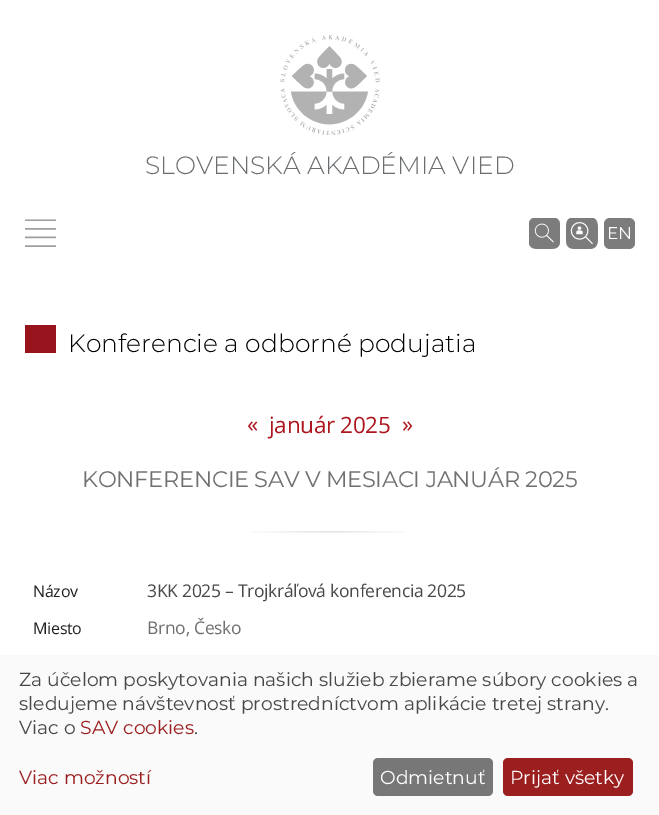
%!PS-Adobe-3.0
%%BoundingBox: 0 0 659 815
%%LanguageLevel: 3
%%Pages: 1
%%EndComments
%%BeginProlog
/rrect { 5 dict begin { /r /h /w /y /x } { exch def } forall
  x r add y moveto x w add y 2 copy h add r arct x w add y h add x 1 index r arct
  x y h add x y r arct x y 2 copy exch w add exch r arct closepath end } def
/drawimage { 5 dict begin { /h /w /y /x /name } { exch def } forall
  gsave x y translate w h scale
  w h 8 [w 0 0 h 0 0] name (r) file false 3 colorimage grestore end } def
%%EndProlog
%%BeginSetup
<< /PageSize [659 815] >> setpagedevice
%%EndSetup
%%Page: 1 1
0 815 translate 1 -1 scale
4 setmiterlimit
1 setgray
0 0 659 815 rectfill
(images/1.raw) 280 35 100 100 drawimage
(images/2.raw) 25 219 31 28 drawimage
(images/3.raw) 529 218 31 31 drawimage
0.502 setgray
566 218 32 31 9 rrect fill
(images/4.raw) 566 218 32 31 drawimage
0.486 setgray
604 218 31 31 6 rrect fill
0.592 0.078 0.11 setrgbcolor
25 325 31 28 rectfill
(images/5.raw) 251 531 155 2 drawimage
0.98 setgray
0 655 659 160 rectfill
0.467 setgray
373 758 120 38 5 rrect fill
0.612 0.122 0.125 setrgbcolor
503 758 130 38 5 rrect fill
/Montserrat-Light [25 0 0 -25 0 0] selectfont
0.416 0.427 0.435 setrgbcolor
145 174 moveto (SLOVENSKÁ AKADÉMIA VIED) show
/Montserrat-Regular [17 0 0 -17 0 0] selectfont
1 setgray
607 239 moveto (EN) show
/Montserrat-Light [25 0 0 -25 0 0] selectfont
0 setgray
68 352 moveto (Konferencie a odborné podujatia) show
/OpenSans-Regular [22.5 0 0 -22.5 0 0] selectfont
0.678 0.086 0.118 setrgbcolor
247 432 moveto -0.3 0 («) ashow
269 433 moveto -0.3 0 (január 2025) ashow
402 432 moveto -0.3 0 (») ashow
/Montserrat-Regular [22.5 0 0 -22.5 0 0] selectfont
0.443 0.439 0.443 setrgbcolor
82 487 moveto -0.3 0 (KONFERENCIE SAV V MESIACI JANUÁR 2025) ashow
/OpenSans-Regular [16 0 0 -16 0 0] selectfont
0.129 0.125 0.129 setrgbcolor
33 597 moveto -0.3 0 (Názov) ashow
/OpenSans-Regular [17.5 0 0 -17.5 0 0] selectfont
0.286 0.278 0.282 setrgbcolor
147 597 moveto -0.3 0 (3KK 2025 – Trojkráľová konferencia 2025) ashow
/OpenSans-Regular [16 0 0 -16 0 0] selectfont
0.129 0.125 0.129 setrgbcolor
33 634 moveto -0.3 0 (Miesto) ashow
/OpenSans-Regular [17.5 0 0 -17.5 0 0] selectfont
0.443 0.439 0.443 setrgbcolor
147 634 moveto -0.3 0 (Brno, Česko) ashow
/Montserrat-Regular [18.75 0 0 -18.75 0 0] selectfont
0.286 0.278 0.282 setrgbcolor
19 686 moveto (Za účelom poskytovania našich služieb zbierame súbory cookies a) show
19 710 moveto (sledujeme návštevnosť prostredníctvom aplikácie tretej strany.) show
19 734 moveto (Viac o) show
0.612 0.122 0.125 setrgbcolor
80 734 moveto (SAV cookies) show
0.286 0.278 0.282 setrgbcolor
194 734 moveto (.) show
0.612 0.122 0.125 setrgbcolor
19 784 moveto (Viac možností) show
1 setgray
380 784 moveto (Odmietnuť) show
510 784 moveto (Prijať všetky) show
showpage
%%EOF
